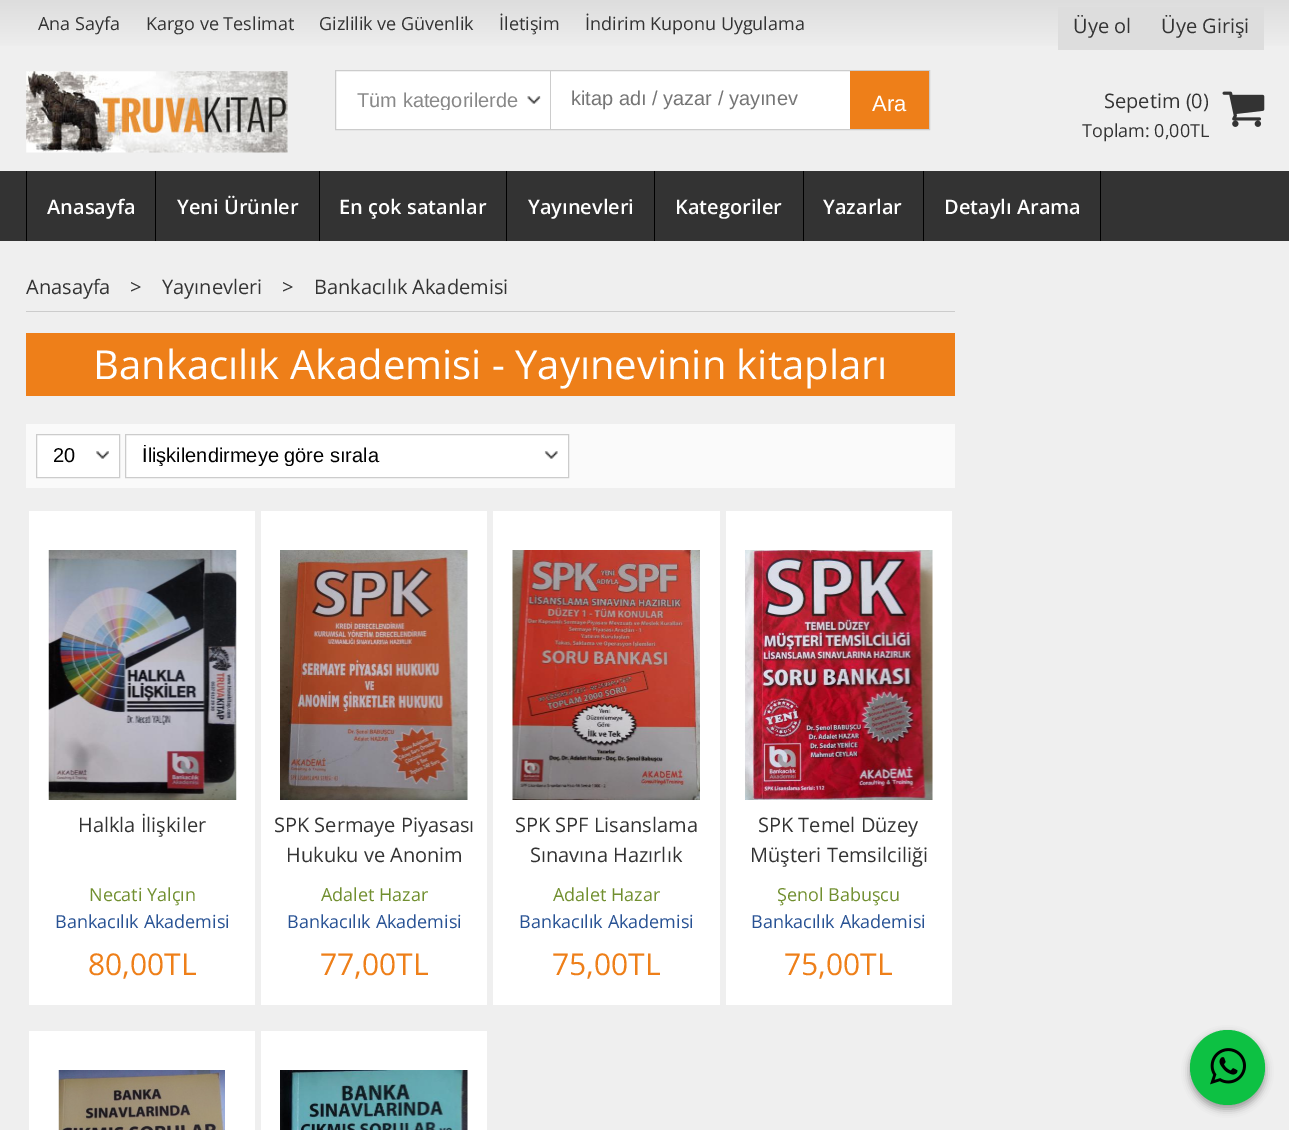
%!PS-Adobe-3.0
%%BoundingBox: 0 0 1289 1130
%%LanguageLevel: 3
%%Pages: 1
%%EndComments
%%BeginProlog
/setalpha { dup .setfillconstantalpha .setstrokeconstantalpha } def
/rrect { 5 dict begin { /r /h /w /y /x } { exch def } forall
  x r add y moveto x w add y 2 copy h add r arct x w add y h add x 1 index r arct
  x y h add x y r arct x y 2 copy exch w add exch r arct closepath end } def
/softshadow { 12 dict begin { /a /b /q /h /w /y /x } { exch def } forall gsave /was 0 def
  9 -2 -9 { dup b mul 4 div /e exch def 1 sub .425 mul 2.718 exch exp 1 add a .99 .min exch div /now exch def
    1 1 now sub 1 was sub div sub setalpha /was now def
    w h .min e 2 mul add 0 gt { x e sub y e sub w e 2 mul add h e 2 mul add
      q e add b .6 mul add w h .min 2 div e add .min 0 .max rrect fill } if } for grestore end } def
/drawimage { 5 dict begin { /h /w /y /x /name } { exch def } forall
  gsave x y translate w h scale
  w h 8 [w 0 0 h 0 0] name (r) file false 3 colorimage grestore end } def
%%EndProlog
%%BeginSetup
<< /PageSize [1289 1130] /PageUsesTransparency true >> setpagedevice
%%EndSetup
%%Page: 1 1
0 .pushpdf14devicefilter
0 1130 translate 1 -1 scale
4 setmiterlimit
0.937 setgray
0 0 1289 1130 rectfill
gsave newpath 0 0 moveto 1289 0 lineto 1289 46 lineto 0 46 lineto closepath clip newpath
<< /ShadingType 2 /ColorSpace /DeviceRGB /Coords [645 0 645 50] /Extend [true true] /Function << /FunctionType 2 /Domain [0 1] /C0 [0.867 0.867 0.867] /C1 [0.933 0.933 0.933] /N 1 >> >> shfill grestore
0.867 setgray
1058 7 206 43 rectfill
(images/1.raw) 26 71 262 82 drawimage
1 setgray
336 71 514 58 rectfill
0.8 setgray
335.5 70.5 594 59 rectstroke
(images/2.raw) 527 96 14 8 drawimage
550 71 1 58 rectfill
0.933 0.498 0.098 setrgbcolor
850 71 79 58 rectfill
(images/3.raw) 1222 91 43 36 drawimage
0.2 setgray
0 171 1289 70 rectfill
0 setgray
26 171 1 70 rectfill
155 171 1 70 rectfill
319 171 1 70 rectfill
506 171 1 70 rectfill
654 171 1 70 rectfill
803 171 1 70 rectfill
1100 171 1 70 rectfill
923 171 1 70 rectfill
0.8 setgray
26 311 929 1 rectfill
0.933 0.498 0.098 setrgbcolor
26 333 929 63 rectfill
0.98 setgray
26 424 929 64 rectfill
1 setgray
37 435 82 42 rectfill
(images/4.raw) 96 451 13 8 drawimage
0.8 setgray
36.5 434.5 83 43 rectstroke
1 setgray
126 435 442 42 rectfill
(images/5.raw) 544 451 14 8 drawimage
0.8 setgray
125.5 434.5 443 43 rectstroke
1 setgray
29 511 226 494 rectfill
(images/6.raw) 48 550 189 250 drawimage
261 511 226 494 rectfill
(images/7.raw) 280 550 188 250 drawimage
493 511 227 494 rectfill
(images/8.raw) 512 550 188 250 drawimage
726 511 226 494 rectfill
(images/9.raw) 745 550 188 250 drawimage
29 1031 226 99 rectfill
(images/10.raw) 58 1070 167 60 drawimage
261 1031 226 99 rectfill
(images/11.raw) 280 1070 188 60 drawimage
0 setgray
1190 1034 75 75 37.5 4 0.23 softshadow
1190 1034 75 75 37.5 4 0.16 softshadow
0.051 0.757 0.263 setrgbcolor
newpath 1227.5 1067.5 37.5 0 360 arc closepath fill
(images/12.raw) 1210 1048 36 37 drawimage
/OpenSans-Regular [18 0 0 -18 0 0] selectfont
0.2 setgray
38 30 moveto (Ana Sayfa) show
146 30 moveto (Kargo ve Teslimat) show
319 30 moveto (Gizlilik ve Güvenlik) show
499 30 moveto (İletişim) show
585 30 moveto (İndirim Kuponu Uygulama) show
/OpenSans-Regular [20 0 0 -20 0 0] selectfont
1073 33 moveto (Üye ol) show
1161 33 moveto (Üye Girişi) show
gsave
356 89 162 21 rectclip
/LiberationSans-Regular [20 0 0 -20 0 0] selectfont
0.533 setgray
357 107 moveto (Tüm kategorilerde) show
grestore
/LiberationSans-Regular [20 0 0 -20 0 0] selectfont
0.459 setgray
571 105 moveto (kitap adı / yazar / yayınev) show
/LiberationSans-Regular [22 0 0 -22 0 0] selectfont
1 setgray
872 111 moveto (Ara) show
/OpenSans-Regular [20 0 0 -20 0 0] selectfont
0.2 setgray
1104 108 moveto (Sepetim \(0\)) show
/OpenSans-Regular [18 0 0 -18 0 0] selectfont
1082 137 moveto (Toplam: 0,00TL) show
/OpenSans-SemiBold [20 0 0 -20 0 0] selectfont
1 setgray
47 214 moveto (Anasayfa) show
177 214 moveto (Yeni Ürünler) show
339 214 moveto (En çok satanlar) show
528 214 moveto (Yayınevleri) show
675 214 moveto (Kategoriler) show
823 214 moveto (Yazarlar) show
944 214 moveto (Detaylı Arama) show
/OpenSans-Regular [20 0 0 -20 0 0] selectfont
0.2 setgray
26 294 moveto (Anasayfa) show
130 294 moveto (>) show
162 294 moveto (Yayınevleri) show
282 294 moveto (>) show
314 294 moveto (Bankacılık Akademisi) show
/OpenSans-Regular [40 0 0 -40 0 0] selectfont
1 setgray
93 379 moveto (Bankacılık Akademisi - Yayınevinin kitapları) show
/LiberationSans-Regular [20 0 0 -20 0 0] selectfont
0 setgray
53 462 moveto (20) show
gsave
143 445 392 21 rectclip
142 462 moveto (İlişkilendirmeye göre sırala) show
grestore
/OpenSans-Regular [20 0 0 -20 0 0] selectfont
0.2 setgray
78 832 moveto (Halkla İlişkiler) show
/OpenSans-Regular [18 0 0 -18 0 0] selectfont
0.443 0.561 0.184 setrgbcolor
89 901 moveto (Necati Yalçın) show
0.157 0.322 0.58 setrgbcolor
55 928 moveto (Bankacılık Akademisi) show
/OpenSans-Regular [30 0 0 -30 0 0] selectfont
0.933 0.498 0.098 setrgbcolor
88 975 moveto (80,00TL) show
/OpenSans-Regular [20 0 0 -20 0 0] selectfont
0.2 setgray
274 832 moveto (SPK Sermaye Piyasası) show
286 862 moveto (Hukuku ve Anonim) show
/OpenSans-Regular [18 0 0 -18 0 0] selectfont
0.443 0.561 0.184 setrgbcolor
321 901 moveto (Adalet Hazar) show
0.157 0.322 0.58 setrgbcolor
287 928 moveto (Bankacılık Akademisi) show
/OpenSans-Regular [30 0 0 -30 0 0] selectfont
0.933 0.498 0.098 setrgbcolor
320 975 moveto (77,00TL) show
/OpenSans-Regular [20 0 0 -20 0 0] selectfont
0.2 setgray
515 832 moveto (SPK SPF Lisanslama) show
530 862 moveto (Sınavına Hazırlık) show
/OpenSans-Regular [18 0 0 -18 0 0] selectfont
0.443 0.561 0.184 setrgbcolor
553 901 moveto (Adalet Hazar) show
0.157 0.322 0.58 setrgbcolor
519 928 moveto (Bankacılık Akademisi) show
/OpenSans-Regular [30 0 0 -30 0 0] selectfont
0.933 0.498 0.098 setrgbcolor
552 975 moveto (75,00TL) show
/OpenSans-Regular [20 0 0 -20 0 0] selectfont
0.2 setgray
758 832 moveto (SPK Temel Düzey) show
750 862 moveto (Müşteri Temsilciliği) show
/OpenSans-Regular [18 0 0 -18 0 0] selectfont
0.443 0.561 0.184 setrgbcolor
777 901 moveto (Şenol Babuşcu) show
0.157 0.322 0.58 setrgbcolor
751 928 moveto (Bankacılık Akademisi) show
/OpenSans-Regular [30 0 0 -30 0 0] selectfont
0.933 0.498 0.098 setrgbcolor
784 975 moveto (75,00TL) show
.poppdf14devicefilter showpage
%%EOF
